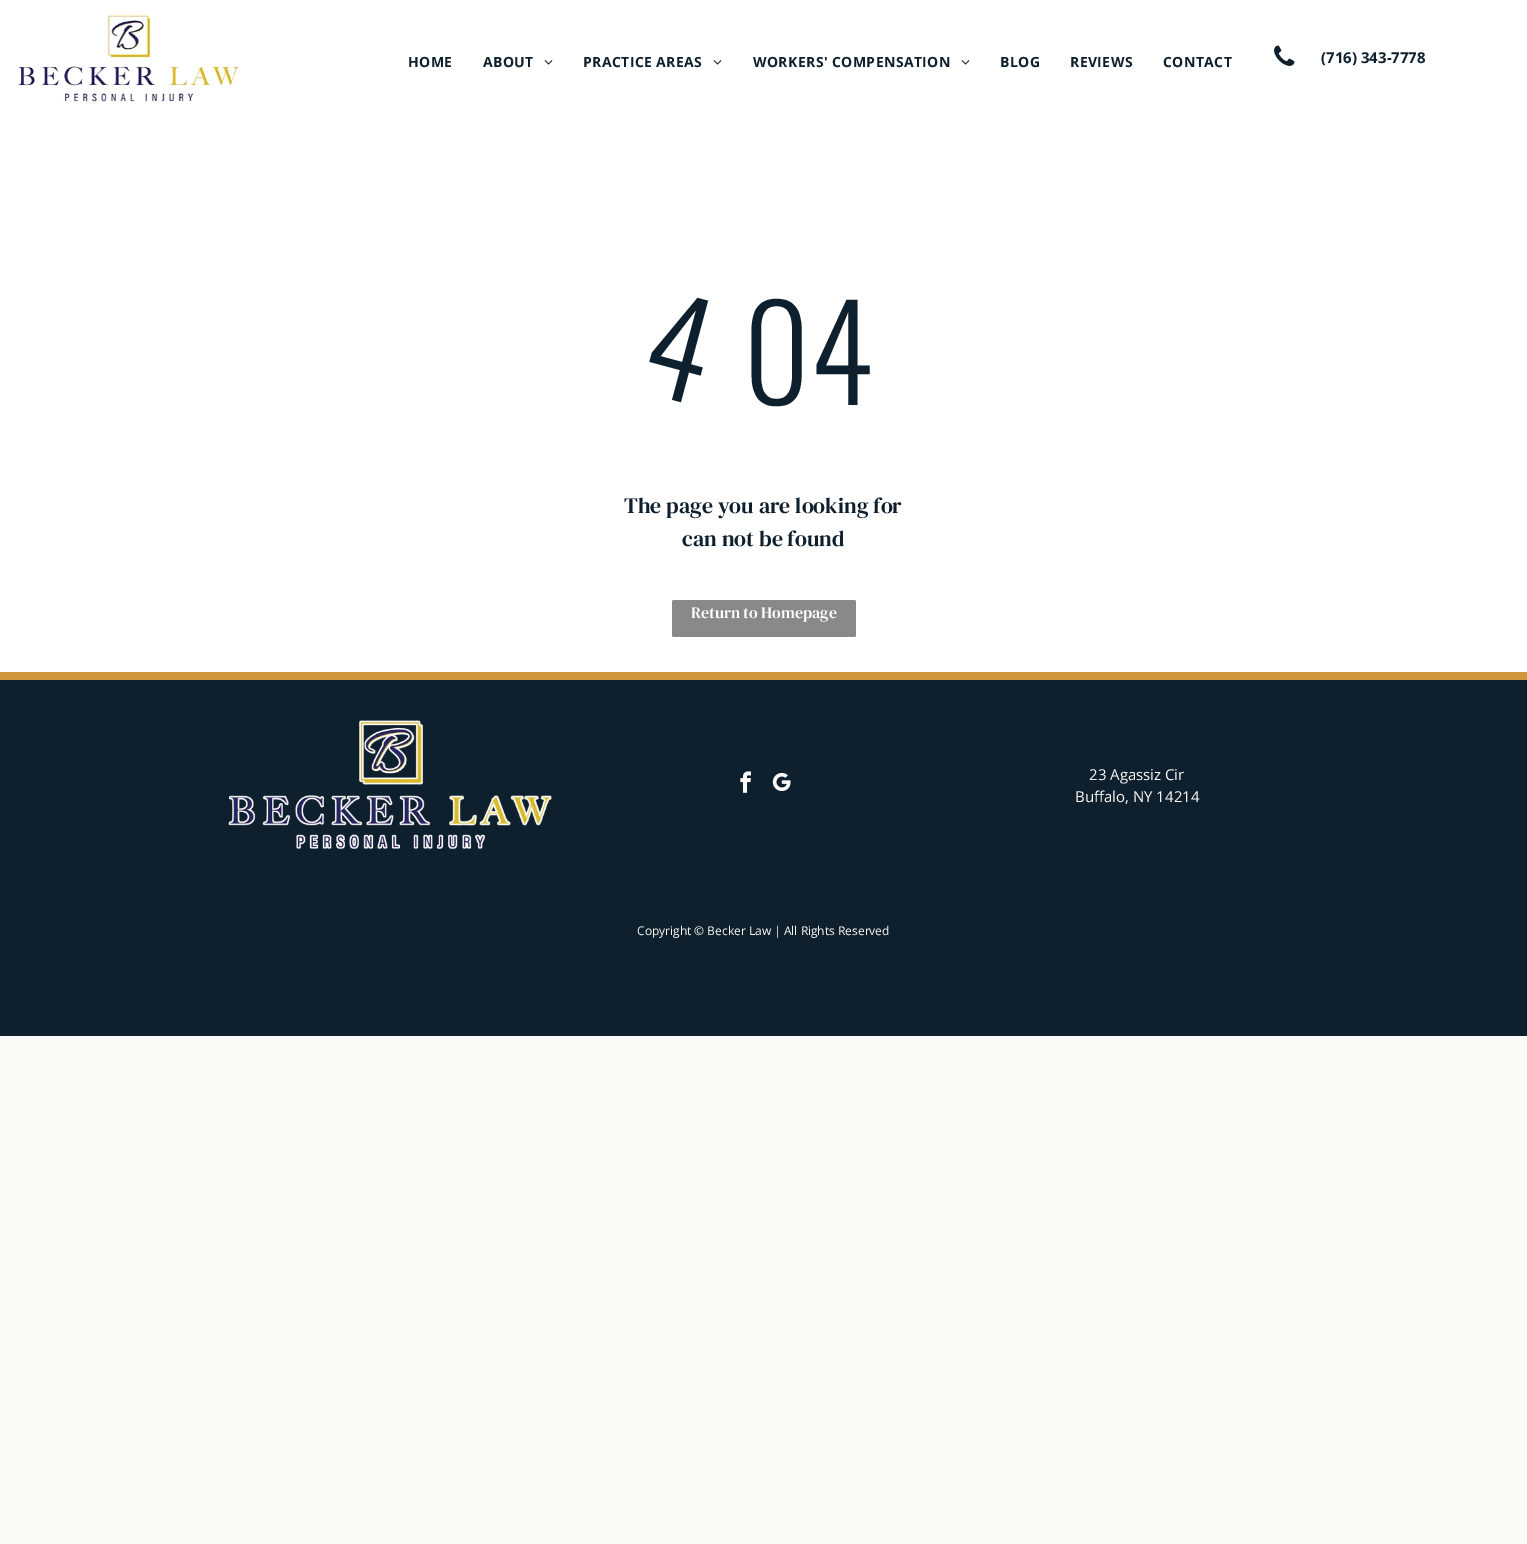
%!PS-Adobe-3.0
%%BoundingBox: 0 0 1527 1544
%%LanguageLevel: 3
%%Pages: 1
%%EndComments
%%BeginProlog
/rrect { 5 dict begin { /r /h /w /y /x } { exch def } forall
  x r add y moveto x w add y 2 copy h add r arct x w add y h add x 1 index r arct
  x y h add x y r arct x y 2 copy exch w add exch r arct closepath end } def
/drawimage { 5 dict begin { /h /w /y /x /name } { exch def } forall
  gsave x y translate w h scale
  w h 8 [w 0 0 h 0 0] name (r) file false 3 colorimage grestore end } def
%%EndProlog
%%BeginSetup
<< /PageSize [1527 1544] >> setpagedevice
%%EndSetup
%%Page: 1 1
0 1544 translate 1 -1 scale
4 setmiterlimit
0.988 0.98 0.969 setrgbcolor
0 0 1527 1544 rectfill
1 setgray
0 0 1527 672 rectfill
(images/1.raw) 18 15 221 87 drawimage
(images/2.raw) 544 60 9 5 drawimage
(images/2.raw) 713 60 9 5 drawimage
(images/2.raw) 961 60 9 5 drawimage
(images/3.raw) 1274 45 21 21 drawimage
0.537 setgray
672 600 184 37 2 rrect fill
0.055 0.125 0.18 setrgbcolor
0 680 1527 356 rectfill
0.82 0.588 0.227 setrgbcolor
0 672 1527 8 rectfill
(images/4.raw) 228 720 324 130 drawimage
(images/5.raw) 740 771 11 22 drawimage
(images/6.raw) 772 772 19 20 drawimage
/OpenSans-Bold [14 0 0 -14 0 0] selectfont
0.055 0.125 0.18 setrgbcolor
408 67 moveto 0.4 0 (HOME) ashow
483 67 moveto 0.4 0 (ABOUT) ashow
583 67 moveto 0.4 0 (PRACTICE AREAS) ashow
753 67 moveto 0.4 0 (WORKERS' COMPENSATION) ashow
1000 67 moveto 0.4 0 (BLOG) ashow
1070 67 moveto 0.4 0 (REVIEWS) ashow
1163 67 moveto 0.4 0 (CONTACT) ashow
/OpenSans-Bold [15 0 0 -15 0 0] selectfont
1321 63 moveto (\(716\) 343-7778) show
/Oswald-Light [130 0 0 -130 0 0] selectfont
gsave 635 390 translate 15 rotate 0 0 moveto (4) show grestore
743 405 moveto (04) show
/DMSerifText-Regular [22 0 0 -22 0 0] selectfont
624 513 moveto (The page you are looking for) show
682 546 moveto (can not be found) show
/DMSerifText-Regular [16 0 0 -16 0 0] selectfont
1 setgray
691 618 moveto (Return to Homepage) show
/OpenSans-Regular [15 0 0 -15 0 0] selectfont
0.988 0.98 0.969 setrgbcolor
1089 780 moveto (23 Agassiz Cir) show
1075 802 moveto (Buffalo, NY 14214) show
/OpenSans-Regular [12 0 0 -12 0 0] selectfont
637 935 moveto (Copyright © Becker Law | All Rights Reserved) show
showpage
%%EOF
